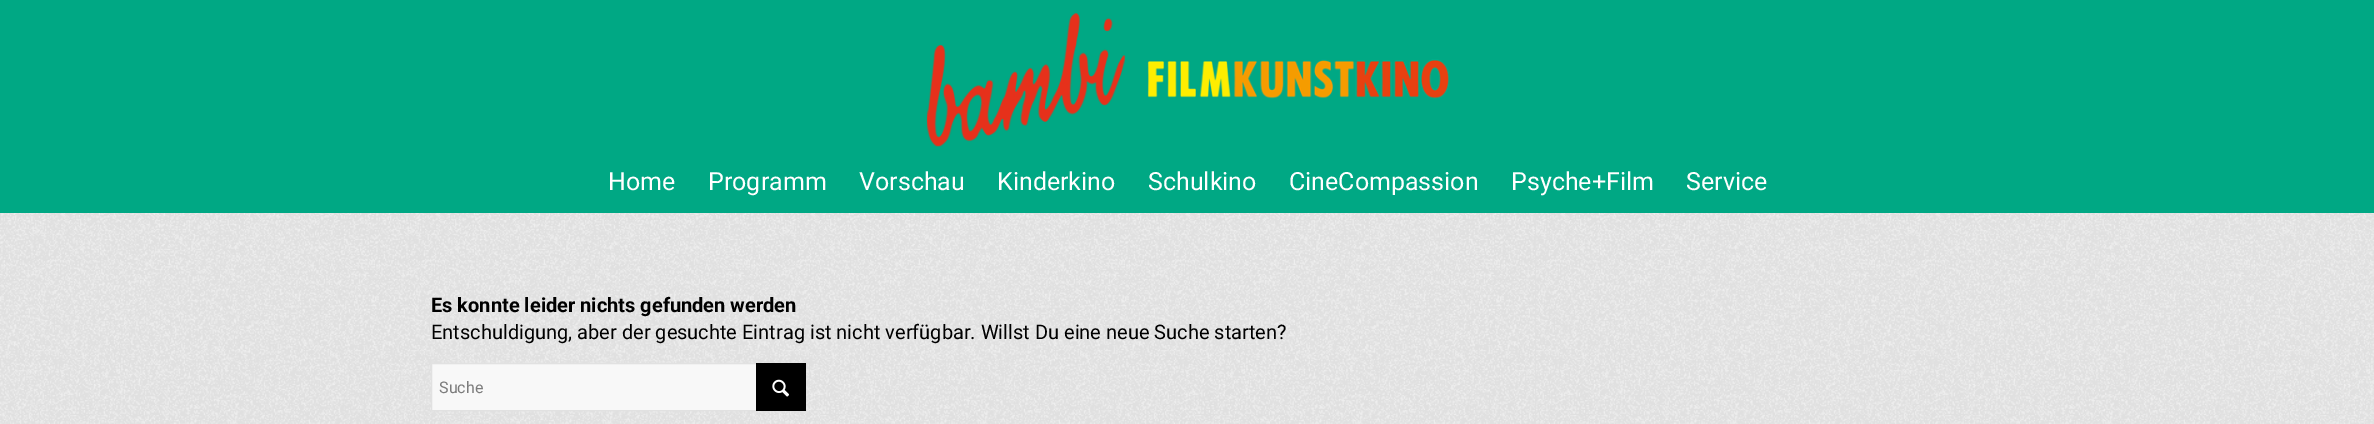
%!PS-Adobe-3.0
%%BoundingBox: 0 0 2374 424
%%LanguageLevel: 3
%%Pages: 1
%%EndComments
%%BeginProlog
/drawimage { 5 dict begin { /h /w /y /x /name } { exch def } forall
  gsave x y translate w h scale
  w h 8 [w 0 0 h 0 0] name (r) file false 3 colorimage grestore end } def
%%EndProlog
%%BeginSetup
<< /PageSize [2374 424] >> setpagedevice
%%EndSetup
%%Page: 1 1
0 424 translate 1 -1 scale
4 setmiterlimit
1 setgray
0 0 2374 424 rectfill
0 0.659 0.518 setrgbcolor
0 0 2374 213 rectfill
(images/1.raw) 926 13 523 134 drawimage
(images/2.raw) 0 213 2374 211 drawimage
0.882 setgray
1535 213 1 211 rectfill
0.973 setgray
432 364 324 46 rectfill
0.882 setgray
431.5 363.5 374 47 rectstroke
0 setgray
756 363 50 48 rectfill
(images/3.raw) 772 379 17 18 drawimage
/Roboto-Regular [25 0 0 -25 0 0] selectfont
1 setgray
608 190 moveto (Home) show
708 190 moveto (Programm) show
859 190 moveto (Vorschau) show
997 190 moveto (Kinderkino) show
1148 190 moveto (Schulkino) show
1289 190 moveto (CineCompassion) show
1511 190 moveto (Psyche+Film) show
1686 190 moveto (Service) show
/Roboto-Bold [20 0 0 -20 0 0] selectfont
0 setgray
431 312 moveto (Es konnte leider nichts gefunden werden) show
/Roboto-Regular [20 0 0 -20 0 0] selectfont
431 339 moveto (Entschuldigung, aber der gesuchte Eintrag ist nicht verfügbar. Willst Du eine neue Suche starten?) show
/Roboto-Regular [16 0 0 -16 0 0] selectfont
0.486 setgray
439 393 moveto (Suche) show
showpage
%%EOF
